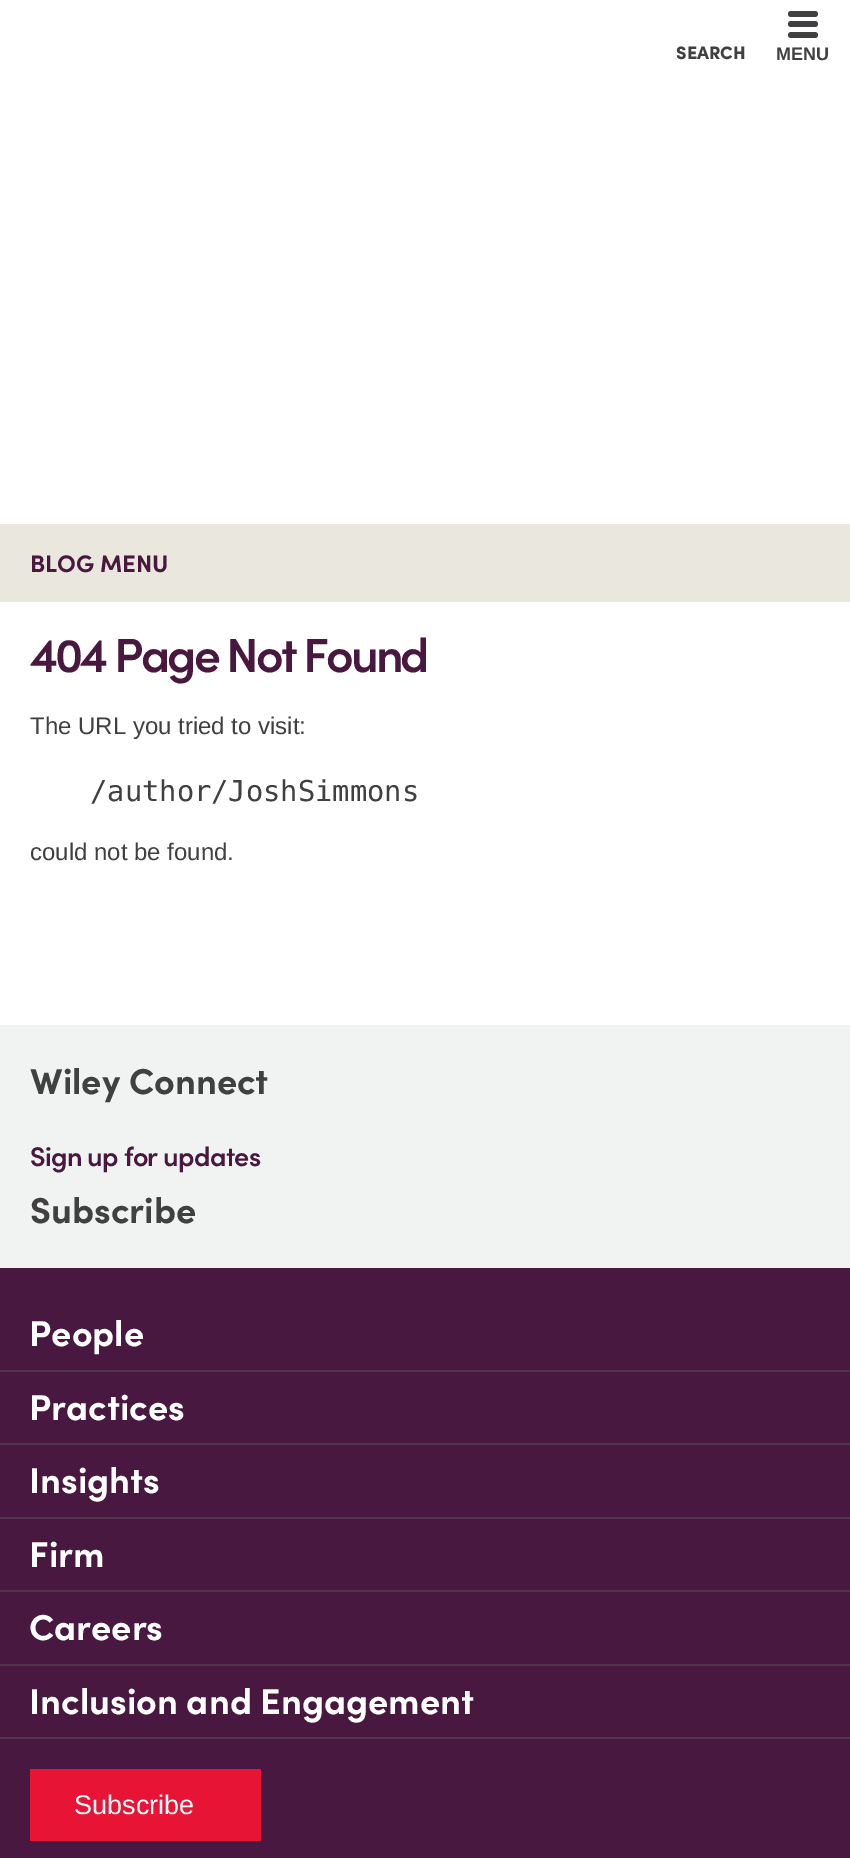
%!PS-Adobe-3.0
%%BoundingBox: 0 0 850 1858
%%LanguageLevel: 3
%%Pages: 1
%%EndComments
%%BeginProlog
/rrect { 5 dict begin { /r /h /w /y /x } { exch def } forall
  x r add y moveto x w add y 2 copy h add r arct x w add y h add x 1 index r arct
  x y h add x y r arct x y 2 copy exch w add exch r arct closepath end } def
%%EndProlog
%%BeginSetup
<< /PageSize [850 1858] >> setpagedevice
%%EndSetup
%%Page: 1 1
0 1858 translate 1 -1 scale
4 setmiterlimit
1 setgray
0 0 850 1858 rectfill
0.255 0.251 0.259 setrgbcolor
788 11 30 6 3 rrect fill
788 21 30 6 3 rrect fill
788 32 30 6 3 rrect fill
0.918 0.906 0.875 setrgbcolor
0 524 850 78 rectfill
0.941 0.953 0.949 setrgbcolor
0 1025 850 243 rectfill
0.286 0.094 0.251 setrgbcolor
0 1268 850 590 rectfill
0.314 0.204 0.298 setrgbcolor
0 1370 850 2 rectfill
0 1443 850 2 rectfill
0 1517 850 2 rectfill
0 1590 850 2 rectfill
0 1664 850 2 rectfill
0 1737 850 2 rectfill
0.906 0.078 0.208 setrgbcolor
30 1769 231 72 rectfill
/Sofia-Black [18 0 0 -18 0 0] selectfont
0.251 setgray
676 59 moveto (SEARCH) show
/LiberationSans-Bold [18 0 0 -18 0 0] selectfont
776 60 moveto (MENU) show
/Sofia-Bold [24 0 0 -24 0 0] selectfont
0.282 0.094 0.247 setrgbcolor
30 572 moveto (BLOG MENU) show
/Sofia-SemiBold [48 0 0 -48 0 0] selectfont
30 672 moveto -3 0 (404 Page Not Found) ashow
/LiberationSans-Regular [24 0 0 -24 0 0] selectfont
0.251 setgray
30 734 moveto (The URL you tried to visit:) show
/DejaVuSansMono-Regular [28.75 0 0 -28.75 0 0] selectfont
90 801 moveto (/author/JoshSimmons) show
/LiberationSans-Regular [24 0 0 -24 0 0] selectfont
30 860 moveto (could not be found.) show
/Sofia-Bold [36 0 0 -36 0 0] selectfont
30 1094 moveto (Wiley Connect) show
/Sofia-SemiBold [27 0 0 -27 0 0] selectfont
0.282 0.094 0.247 setrgbcolor
30 1166 moveto -0.75 0 (Sign up for updates) ashow
/Sofia-Bold [36 0 0 -36 0 0] selectfont
0.251 setgray
30 1223 moveto (Subscribe) show
1 setgray
29 1346 moveto (People) show
29 1420 moveto (Practices) show
29 1493 moveto (Insights) show
29 1567 moveto (Firm) show
29 1640 moveto (Careers) show
29 1714 moveto (Inclusion and Engagement) show
/LiberationSans-Regular [27 0 0 -27 0 0] selectfont
74 1814 moveto (Subscribe) show
showpage
%%EOF
